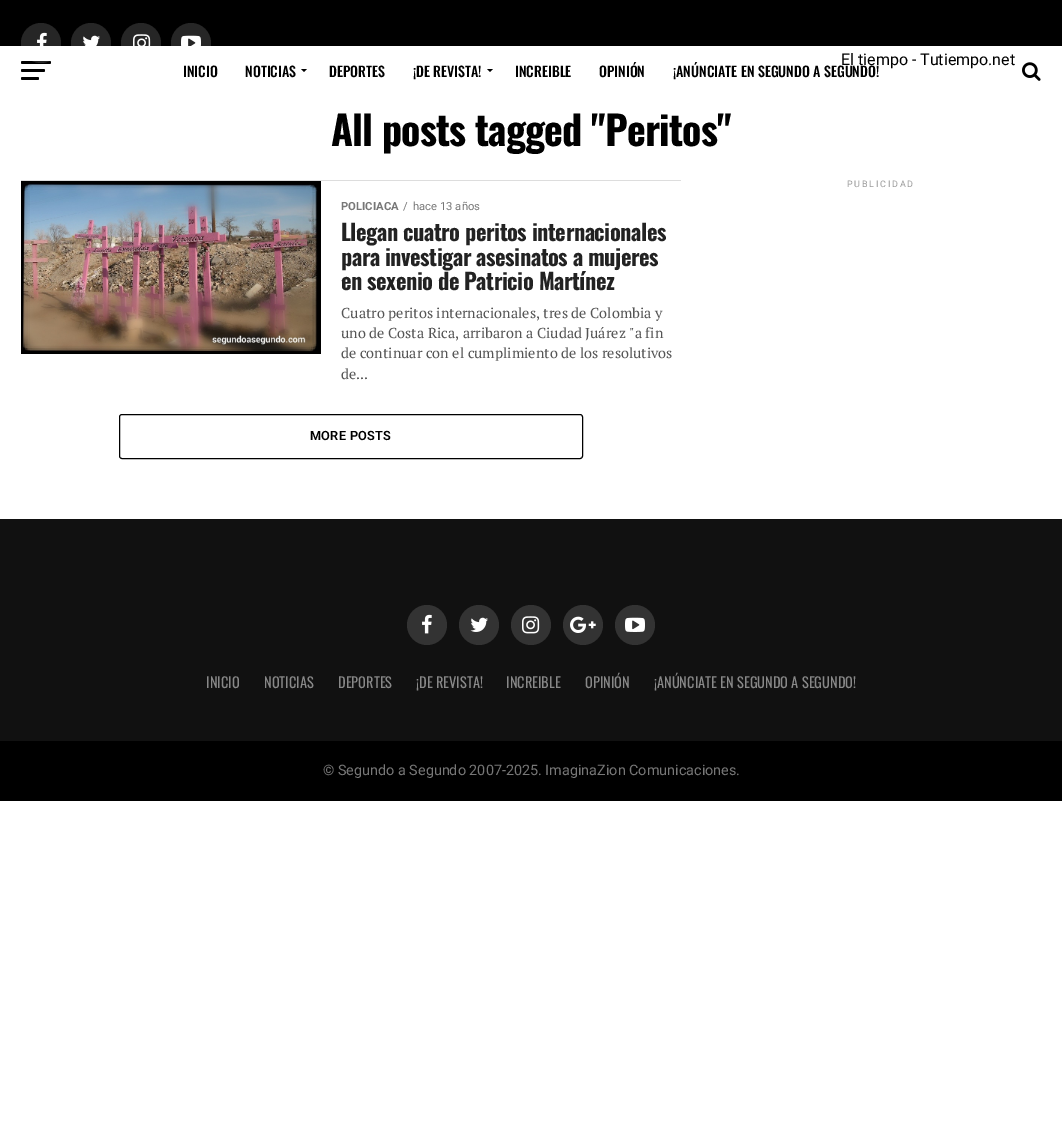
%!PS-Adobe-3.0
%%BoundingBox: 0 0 1062 1126
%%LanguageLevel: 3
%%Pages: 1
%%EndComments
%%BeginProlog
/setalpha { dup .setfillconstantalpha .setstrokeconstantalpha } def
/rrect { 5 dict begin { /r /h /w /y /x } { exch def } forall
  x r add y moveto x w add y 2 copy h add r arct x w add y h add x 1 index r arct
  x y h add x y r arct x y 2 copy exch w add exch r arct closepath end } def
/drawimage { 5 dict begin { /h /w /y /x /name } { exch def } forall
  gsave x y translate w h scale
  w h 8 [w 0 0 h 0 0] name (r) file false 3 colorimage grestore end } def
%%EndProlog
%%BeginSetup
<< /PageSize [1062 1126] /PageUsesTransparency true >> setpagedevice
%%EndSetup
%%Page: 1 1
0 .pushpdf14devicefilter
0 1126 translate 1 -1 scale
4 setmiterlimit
1 setgray
0 0 1062 1126 rectfill
0 setgray
21 61 30 3 1.5 rrect fill
21 69 24 3 1.5 rrect fill
21 77 18 3 1.5 rrect fill
newpath 301 69 moveto 307 69 lineto 304 72 lineto closepath fill
newpath 487 69 moveto 493 69 lineto 490 72 lineto closepath fill
(images/1.raw) 1022 62 19 19 drawimage
0 0 1062 46 rectfill
0.15 setalpha
1 setgray
newpath 41 43 20 0 360 arc closepath fill
1 setalpha
(images/2.raw) 37 32 10 14 drawimage
0.15 setalpha
newpath 91 43 20 0 360 arc closepath fill
1 setalpha
(images/3.raw) 83 35 17 11 drawimage
0.15 setalpha
newpath 141 43 20 0 360 arc closepath fill
1 setalpha
(images/4.raw) 133 34 18 12 drawimage
0.15 setalpha
newpath 191 43 20 0 360 arc closepath fill
1 setalpha
(images/5.raw) 181 35 20 11 drawimage
0.867 setgray
21 180 660 1 rectfill
0 setgray
21 181 300 173 rectfill
(images/6.raw) 22 183 296 169 drawimage
119.5 414.5 463 44 2.5 rrect stroke
0.067 setgray
0 519 1062 222 rectfill
0.2 setgray
newpath 427 625 20 0 360 arc closepath fill
(images/7.raw) 422 614 10 20 drawimage
newpath 479 625 20 0 360 arc closepath fill
(images/8.raw) 470 617 18 15 drawimage
newpath 531 625 20 0 360 arc closepath fill
(images/9.raw) 522 616 18 18 drawimage
newpath 583 625 20 0 360 arc closepath fill
(images/10.raw) 570 616 26 17 drawimage
newpath 635 625 20 0 360 arc closepath fill
(images/11.raw) 625 617 20 15 drawimage
0 setgray
0 741 1062 60 rectfill
/Oswald-Medium [14 0 0 -14 0 0] selectfont
183 77 moveto (INICIO) show
245 77 moveto (NOTICIAS) show
329 77 moveto (DEPORTES) show
413 77 moveto (¡DE REVISTA!) show
515 77 moveto (INCREIBLE) show
599 77 moveto (OPINIÓN) show
673 77 moveto (¡ANÚNCIATE EN SEGUNDO A SEGUNDO!) show
/Roboto-Regular [16 0 0 -16 0 0] selectfont
841 65 moveto (El tiempo - Tutiempo.net) show
/Oswald-Bold [40 0 0 -40 0 0] selectfont
331 146 moveto -0.8 0 (All posts tagged "Peritos") ashow
/Roboto-Regular [9 0 0 -9 0 0] selectfont
0.6 setgray
847 187 moveto 1.75 0 (PUBLICIDAD) ashow
/Roboto-Bold [11.25 0 0 -11.25 0 0] selectfont
0.467 setgray
341 210 moveto (POLICIACA) show
/Roboto-Regular [11.25 0 0 -11.25 0 0] selectfont
403 210 moveto (/) show
413 210 moveto (hace 13 años) show
/Oswald-Bold [22.4 0 0 -22.4 0 0] selectfont
0.133 setgray
341 241 moveto -0.45 0 (Llegan cuatro peritos internacionales) ashow
341 266 moveto -0.45 0 (para investigar asesinatos a mujeres) ashow
341 290 moveto -0.45 0 (en sexenio de Patricio Martínez) ashow
/PTSerif-Regular [14.4 0 0 -14.4 0 0] selectfont
0.333 setgray
341 318 moveto (Cuatro peritos internacionales, tres de Colombia y) show
341 338 moveto (uno de Costa Rica, arribaron a Ciudad Juárez "a fin) show
341 358 moveto (de continuar con el cumplimiento de los resolutivos) show
341 379 moveto (de...) show
/Roboto-SemiBold [12.75 0 0 -12.75 0 0] selectfont
0 setgray
310 440 moveto 0.25 0 (MORE POSTS) ashow
/Oswald-Regular [14.4 0 0 -14.4 0 0] selectfont
0.533 setgray
206 688 moveto (INICIO) show
264 688 moveto (NOTICIAS) show
338 688 moveto (DEPORTES) show
416 688 moveto (¡DE REVISTA!) show
506 688 moveto (INCREIBLE) show
585 688 moveto (OPINIÓN) show
654 688 moveto (¡ANÚNCIATE EN SEGUNDO A SEGUNDO!) show
/Roboto-Regular [14.4 0 0 -14.4 0 0] selectfont
0.467 setgray
323 775 moveto (© Segundo a Segundo 2007-2025. ImaginaZion Comunicaciones.) show
.poppdf14devicefilter showpage
%%EOF
